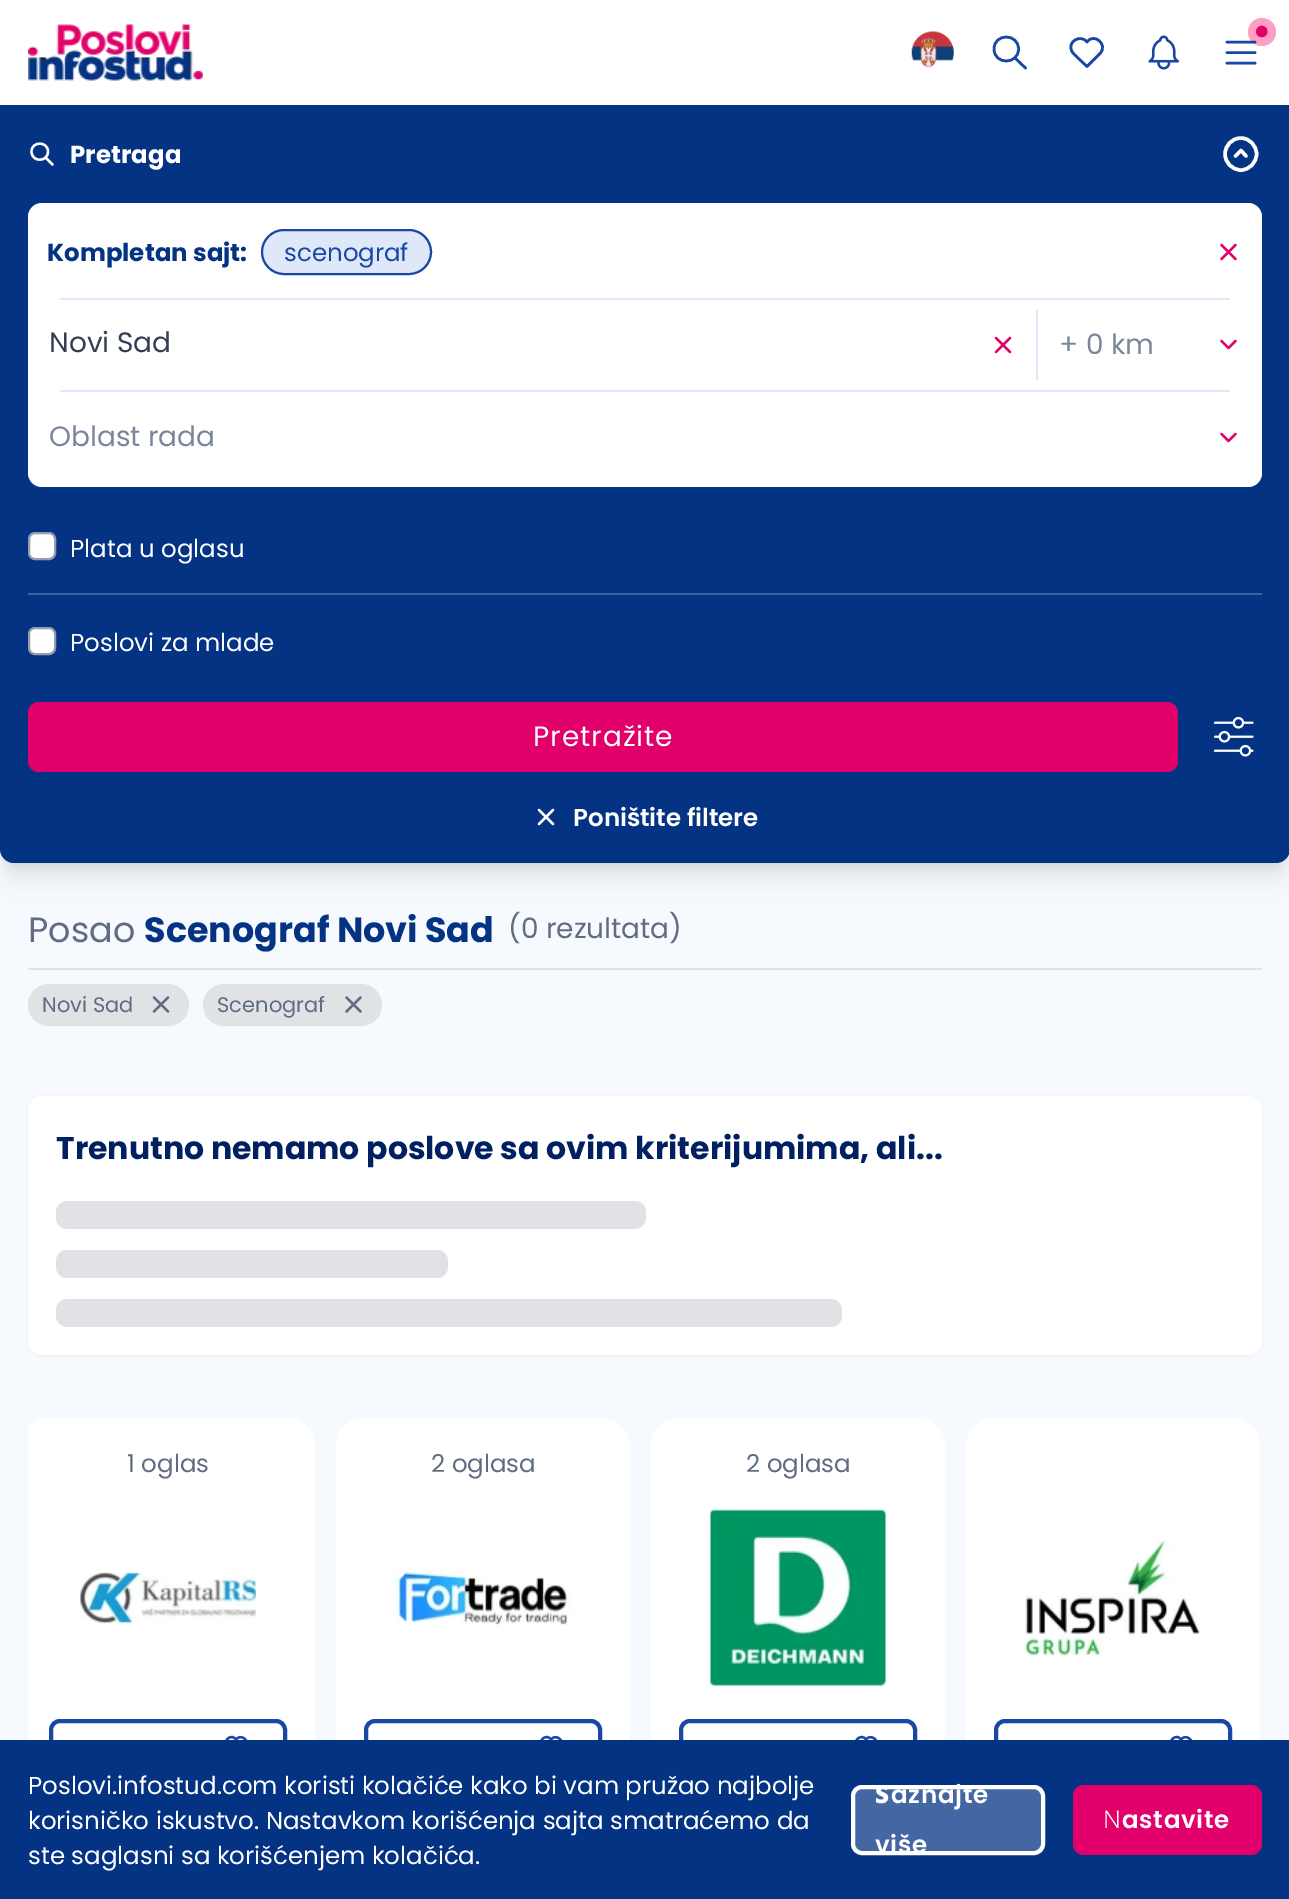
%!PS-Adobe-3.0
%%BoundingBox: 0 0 1289 1899
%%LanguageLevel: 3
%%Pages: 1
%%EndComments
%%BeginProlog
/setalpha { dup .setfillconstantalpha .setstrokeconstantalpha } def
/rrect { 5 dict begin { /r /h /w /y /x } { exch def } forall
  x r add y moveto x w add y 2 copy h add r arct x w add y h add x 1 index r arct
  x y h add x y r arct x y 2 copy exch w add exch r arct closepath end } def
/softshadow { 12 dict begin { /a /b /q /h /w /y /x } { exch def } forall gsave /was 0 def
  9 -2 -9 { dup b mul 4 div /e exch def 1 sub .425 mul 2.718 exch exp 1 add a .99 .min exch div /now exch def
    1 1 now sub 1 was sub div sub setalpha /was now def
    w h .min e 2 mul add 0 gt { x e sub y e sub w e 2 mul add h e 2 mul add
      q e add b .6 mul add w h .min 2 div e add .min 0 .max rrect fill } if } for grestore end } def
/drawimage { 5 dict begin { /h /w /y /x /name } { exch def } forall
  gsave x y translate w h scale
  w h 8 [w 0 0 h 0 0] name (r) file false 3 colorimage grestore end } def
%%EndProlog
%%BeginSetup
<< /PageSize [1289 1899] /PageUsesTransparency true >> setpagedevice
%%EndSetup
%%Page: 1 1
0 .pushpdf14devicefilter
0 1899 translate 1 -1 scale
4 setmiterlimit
0.965 0.976 0.992 setrgbcolor
0 0 1289 1899 rectfill
0 setgray
7 119 1276 744 7 5 0.1 softshadow
5 128 1280 747 9 13 0.1 softshadow
0.02 0.2 0.518 setrgbcolor
newpath 0 105 moveto 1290 105 lineto 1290 849 lineto 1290 856.5 1283.5 863 1276 863 curveto 14 863 lineto 6.5 863 0 856.5 0 849 curveto closepath fill
1 setgray
2.3 setlinewidth
1 setlinecap
1 setlinejoin
newpath 31.5 151.5 moveto 31.5 162.5 48 162.5 48 151.5 curveto 48 141 31.5 141 31.5 151.5 curveto 52.5 164.5 moveto 45.5 157.5 lineto stroke
3.5 setlinewidth
newpath 1235.5 156 moveto 1241 150.5 lineto 1246 156 lineto 1241 170 moveto 1249.5 170 1256.5 162.5 1256.5 154 curveto 1256.5 145.5 1249.5 138 1241 138 curveto 1232 138 1225 145.5 1225 154 curveto 1225 162.5 1232 170 1241 170 curveto closepath stroke
0 0.125 0.384 setrgbcolor
0 14 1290 105 0 21 0.06 softshadow
1 setgray
0 0 1289 105 rectfill
(images/1.raw) 28 24 175 57 drawimage
(images/2.raw) 911 31 43 37 drawimage
0.094 0.278 0.643 setrgbcolor
2.6 setlinewidth
newpath 994 49 moveto 994 65 1018.5 65 1018.5 49 curveto 1018.5 33 994 33 994 49 curveto 1025.5 68 moveto 1015 58 lineto stroke
newpath 1100 53.5 moveto 1087 66.5 lineto 1078 58 lineto 1076 56 1073.5 54 1072 51.5 curveto 1066.5 42 1080.5 33.5 1087 42 curveto 1094 32 1108.5 45 1100 53.5 curveto stroke
(images/3.raw) 1148 35 31 35 drawimage
1 0.627 0.761 setrgbcolor
newpath 1262 32 14 0 360 arc closepath fill
(images/4.raw) 1255 25 13 13 drawimage
0.094 0.278 0.643 setrgbcolor
newpath 1227 42 moveto 1255 42 lineto 1227 52.5 moveto 1255 52.5 lineto 1227 63 moveto 1255 63 lineto stroke
1 setgray
28 203 1234 284 14 rrect fill
0.875 0.91 0.976 setrgbcolor
262 230 169 44 22 rrect gsave fill grestore
0.094 0.278 0.643 setrgbcolor
2 setlinewidth
0 setlinecap
0 setlinejoin
stroke
0.886 0.004 0.416 setrgbcolor
2.3 setlinewidth
1 setlinecap
1 setlinejoin
newpath 1235.5 245 moveto 1221.5 259 lineto 1221.5 245 moveto 1235.5 259 lineto stroke
0.875 0.91 0.976 setrgbcolor
60 298 1170 2 rectfill
0.886 0.004 0.416 setrgbcolor
newpath 1010 338 moveto 996 352 lineto 996 338 moveto 1010 352 lineto stroke
0.875 0.91 0.976 setrgbcolor
1036 310 2 70 rectfill
0.886 0.004 0.416 setrgbcolor
newpath 1221.5 341 moveto 1228.5 348 lineto 1235.5 341 lineto stroke
0.875 0.91 0.976 setrgbcolor
60 390 1170 2 rectfill
0.886 0.004 0.416 setrgbcolor
newpath 1221.5 434 moveto 1228.5 441 lineto 1235.5 434 lineto stroke
0.235 0.376 0.631 setrgbcolor
28 593 1234 2 rectfill
1 setgray
29 533 26 26 6 rrect gsave fill grestore
0.576 0.616 0.682 setrgbcolor
2 setlinewidth
0 setlinecap
0 setlinejoin
stroke
1 setgray
29 628 26 26 6 rrect gsave fill grestore
0.576 0.616 0.682 setrgbcolor
stroke
0.886 0.004 0.416 setrgbcolor
28 702 1150 70 11 rrect fill
(images/5.raw) 1213 716 41 41 drawimage
1 setgray
2.3 setlinewidth
1 setlinecap
1 setlinejoin
newpath 553 810 moveto 539 824 lineto 539 810 moveto 553 824 lineto stroke
0.878 0.886 0.902 setrgbcolor
28 968 1234 2 rectfill
28 984 161 42 21 rrect fill
0.373 0.424 0.506 setrgbcolor
newpath 168 997.5 moveto 154 1011.5 lineto 154 997.5 moveto 168 1011.5 lineto stroke
0.878 0.886 0.902 setrgbcolor
203 984 179 42 21 rrect fill
0.373 0.424 0.506 setrgbcolor
newpath 360.5 997.5 moveto 346.5 1011.5 lineto 346.5 997.5 moveto 360.5 1011.5 lineto stroke
0 setgray
28 1097 1234 259 14 2 0.05 softshadow
1 setgray
28 1096 1234 259 14 rrect fill
0.878 0.886 0.902 setrgbcolor
56 1201 590 28 11 rrect fill
56 1250 392 28 11 rrect fill
56 1299 786 28 11 rrect fill
gsave
28 1418 1234 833 rectclip
1 setgray
21 1418 294 385 28 rrect fill
grestore
(images/6.raw) 80 1572 176 52 drawimage
0.094 0.278 0.643 setrgbcolor
4 setlinewidth
0 setlinecap
0 setlinejoin
51 1721 234 52 9 rrect stroke
2.3 setlinewidth
1 setlinecap
1 setlinejoin
newpath 245 1747 moveto 236 1756 lineto 226.5 1746 lineto 223 1739.5 232 1733.5 236 1739.5 curveto 241 1733 251 1741.5 245 1747 curveto stroke
1 setgray
336 1418 294 385 28 rrect fill
(images/7.raw) 395 1567 176 58 drawimage
0.094 0.278 0.643 setrgbcolor
4 setlinewidth
0 setlinecap
0 setlinejoin
366 1721 234 52 9 rrect stroke
2.3 setlinewidth
1 setlinecap
1 setlinejoin
newpath 560 1747 moveto 551 1756 lineto 541.5 1746 lineto 538 1739.5 547 1733.5 551 1739.5 curveto 556 1733 566 1741.5 560 1747 curveto stroke
1 setgray
651 1418 294 385 28 rrect fill
(images/8.raw) 710 1509 176 177 drawimage
0.094 0.278 0.643 setrgbcolor
4 setlinewidth
0 setlinecap
0 setlinejoin
681 1721 234 52 9 rrect stroke
2.3 setlinewidth
1 setlinecap
1 setlinejoin
newpath 875 1747 moveto 866 1756 lineto 856.5 1746 lineto 853 1739.5 862 1733.5 866 1739.5 curveto 871 1733 881 1741.5 875 1747 curveto stroke
1 setgray
966 1418 294 385 28 rrect fill
(images/9.raw) 1025 1539 175 117 drawimage
0.094 0.278 0.643 setrgbcolor
4 setlinewidth
0 setlinecap
0 setlinejoin
996 1721 234 52 9 rrect stroke
2.3 setlinewidth
1 setlinecap
1 setlinejoin
newpath 1190 1747 moveto 1181 1756 lineto 1171.5 1746 lineto 1168 1739.5 1177 1733.5 1181 1739.5 curveto 1186 1733 1196 1741.5 1190 1747 curveto stroke
0.02 0.2 0.518 setrgbcolor
0 1740 1289 159 rectfill
0.267 0.4 0.639 setrgbcolor
853 1787 190 66 9 rrect gsave fill grestore
1 setgray
4 setlinewidth
0 setlinecap
0 setlinejoin
stroke
0.886 0.004 0.416 setrgbcolor
1073 1785 189 70 11 rrect fill
/Poppins-Bold [24.5 0 0 -24.5 0 0] selectfont
1 setgray
70 163 moveto (Pretraga) show
0.02 0.2 0.518 setrgbcolor
47 261 moveto (Kompletan sajt:) show
/Poppins-Regular [24.5 0 0 -24.5 0 0] selectfont
0.094 0.278 0.643 setrgbcolor
284 261 moveto (scenograf) show
/Poppins-Regular [28 0 0 -28 0 0] selectfont
0.196 0.243 0.322 setrgbcolor
49 352 moveto (Novi Sad) show
0.475 0.525 0.604 setrgbcolor
1059 354 moveto (+ 0 km) show
49 446 moveto (Oblast rada) show
/Poppins-Regular [24.5 0 0 -24.5 0 0] selectfont
1 setgray
70 557 moveto (Plata u oglasu) show
70 651 moveto (Poslovi za mlade) show
/Poppins-Regular [28 0 0 -28 0 0] selectfont
533 746 moveto 1 0 (Pretražite) ashow
/Poppins-SemiBold [24.5 0 0 -24.5 0 0] selectfont
573 826 moveto (Poništite filtere) show
/Poppins-Regular [35 0 0 -35 0 0] selectfont
0.373 0.424 0.506 setrgbcolor
28 942 moveto (Posao) show
/Poppins-Bold [35 0 0 -35 0 0] selectfont
0.02 0.2 0.518 setrgbcolor
144 942 moveto (Scenograf Novi Sad) show
/Poppins-Regular [28 0 0 -28 0 0] selectfont
0.373 0.424 0.506 setrgbcolor
508 938 moveto (\(0 rezultata\)) show
/Poppins-Regular [21 0 0 -21 0 0] selectfont
42 1012 moveto (Novi Sad) show
217 1012 moveto (Scenograf) show
/Poppins-Bold [31.5 0 0 -31.5 0 0] selectfont
0 0.125 0.384 setrgbcolor
56 1159 moveto (Trenutno nemamo poslove sa ovim kriterijumima, ali...) show
/Poppins-Regular [24.5 0 0 -24.5 0 0] selectfont
0.373 0.424 0.506 setrgbcolor
127 1472 moveto (1 oglas) show
431 1472 moveto (2 oglasa) show
746 1472 moveto (2 oglasa) show
1 setgray
28 1794 moveto (Poslovi.infostud.com koristi kolačiće kako bi vam pružao najbolje) show
28 1829 moveto (korisničko iskustvo. Nastavkom korišćenja sajta smatraćemo da) show
28 1864 moveto (ste saglasni sa korišćenjem kolačića.) show
/NotoSans-Black [24.5 0 0 -24.5 0 0] selectfont
875 1803 moveto 0.75 0 (S) ashow
/Poppins-SemiBold [24.5 0 0 -24.5 0 0] selectfont
891 1803 moveto 0.75 0 (aznajte) ashow
875 1853 moveto 0.75 0 (više) ashow
/NotoSans-Light [24.5 0 0 -24.5 0 0] selectfont
1103 1828 moveto 0.75 0 (N) ashow
/Poppins-SemiBold [24.5 0 0 -24.5 0 0] selectfont
1122 1828 moveto 0.75 0 (astavite) ashow
.poppdf14devicefilter showpage
%%EOF
